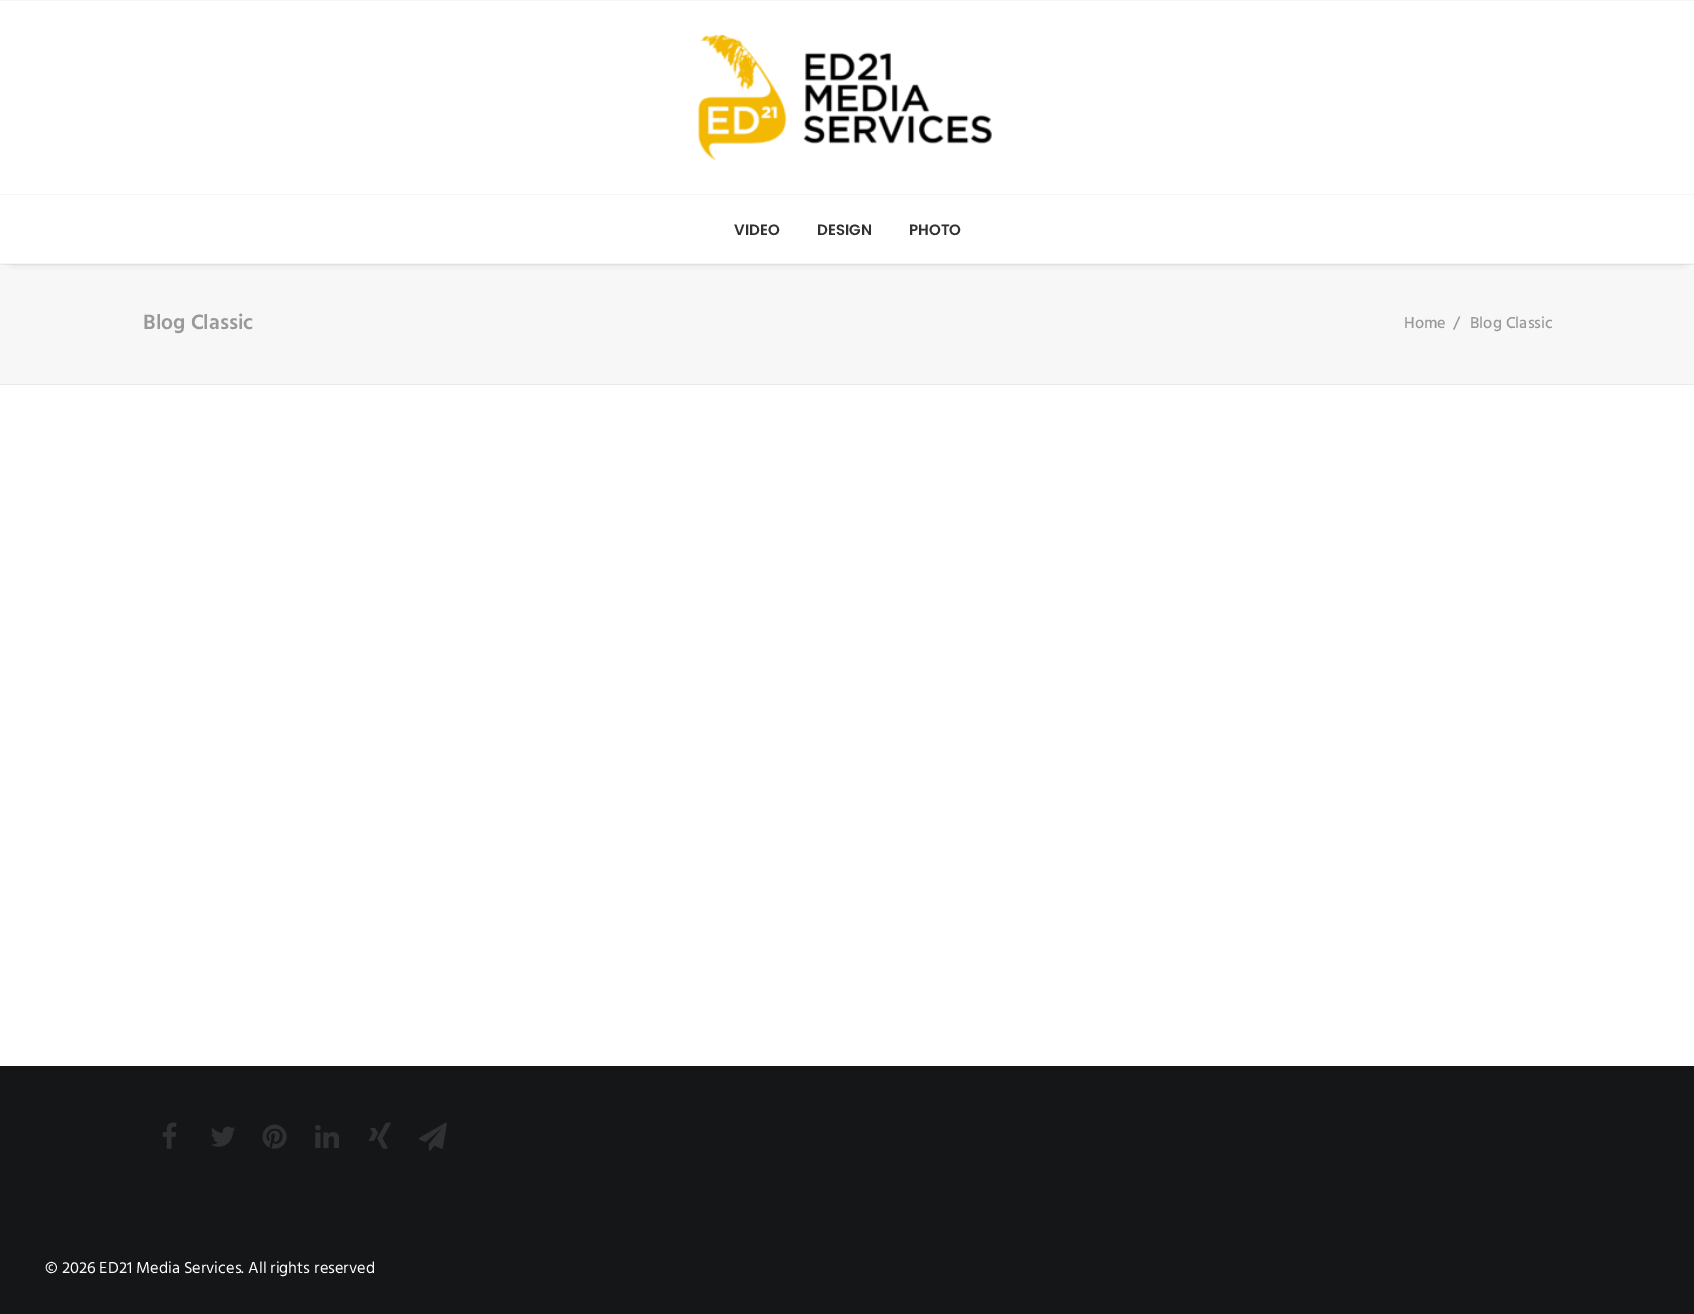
%!PS-Adobe-3.0
%%BoundingBox: 0 0 1694 1314
%%LanguageLevel: 3
%%Pages: 1
%%EndComments
%%BeginProlog
/setalpha { dup .setfillconstantalpha .setstrokeconstantalpha } def
/rrect { 5 dict begin { /r /h /w /y /x } { exch def } forall
  x r add y moveto x w add y 2 copy h add r arct x w add y h add x 1 index r arct
  x y h add x y r arct x y 2 copy exch w add exch r arct closepath end } def
/softshadow { 12 dict begin { /a /b /q /h /w /y /x } { exch def } forall gsave /was 0 def
  9 -2 -9 { dup b mul 4 div /e exch def 1 sub .425 mul 2.718 exch exp 1 add a .99 .min exch div /now exch def
    1 1 now sub 1 was sub div sub setalpha /was now def
    w h .min e 2 mul add 0 gt { x e sub y e sub w e 2 mul add h e 2 mul add
      q e add b .6 mul add w h .min 2 div e add .min 0 .max rrect fill } if } for grestore end } def
/drawimage { 5 dict begin { /h /w /y /x /name } { exch def } forall
  gsave x y translate w h scale
  w h 8 [w 0 0 h 0 0] name (r) file false 3 colorimage grestore end } def
%%EndProlog
%%BeginSetup
<< /PageSize [1694 1314] /PageUsesTransparency true >> setpagedevice
%%EndSetup
%%Page: 1 1
0 .pushpdf14devicefilter
0 1314 translate 1 -1 scale
4 setmiterlimit
0.078 0.086 0.094 setrgbcolor
0 0 1694 1314 rectfill
1 setgray
0 1 1694 193 rectfill
0.961 setgray
0 0 1694 1 rectfill
(images/1.raw) 698 35 294 125 drawimage
0.969 setgray
0 265 1694 119 rectfill
0.918 setgray
0 264 1694 1 rectfill
0 setgray
13 211 1670 45 0 6 0.6 softshadow
1 setgray
0 195 1694 68 rectfill
0.961 setgray
0 194 1694 1 rectfill
0 263 1694 1 rectfill
0.918 setgray
0 384 1694 1 rectfill
1 setgray
0 385 1694 681 rectfill
(images/2.raw) 162 1122 15 27 drawimage
(images/3.raw) 211 1126 24 21 drawimage
(images/4.raw) 262 1124 25 25 drawimage
(images/5.raw) 315 1125 24 23 drawimage
(images/6.raw) 368 1122 23 27 drawimage
(images/7.raw) 418 1122 29 29 drawimage
/Poppins-SemiBold [15 0 0 -15 0 0] selectfont
0.188 0.192 0.2 setrgbcolor
734 235 moveto (VIDEO) show
817 235 moveto (DESIGN) show
909 235 moveto (PHOTO) show
/Hind-SemiBold [21.25 0 0 -21.25 0 0] selectfont
0.6 setgray
143 329 moveto (Blog Classic) show
/Hind-Medium [16.25 0 0 -16.25 0 0] selectfont
1404 328 moveto (Home) show
1453 328 moveto (/) show
1470 328 moveto (Blog Classic) show
/Hind-Regular [16.4 0 0 -16.4 0 0] selectfont
1 setgray
45 1273 moveto (© 2026 ED21 Media Services. All rights reserved) show
.poppdf14devicefilter showpage
%%EOF
